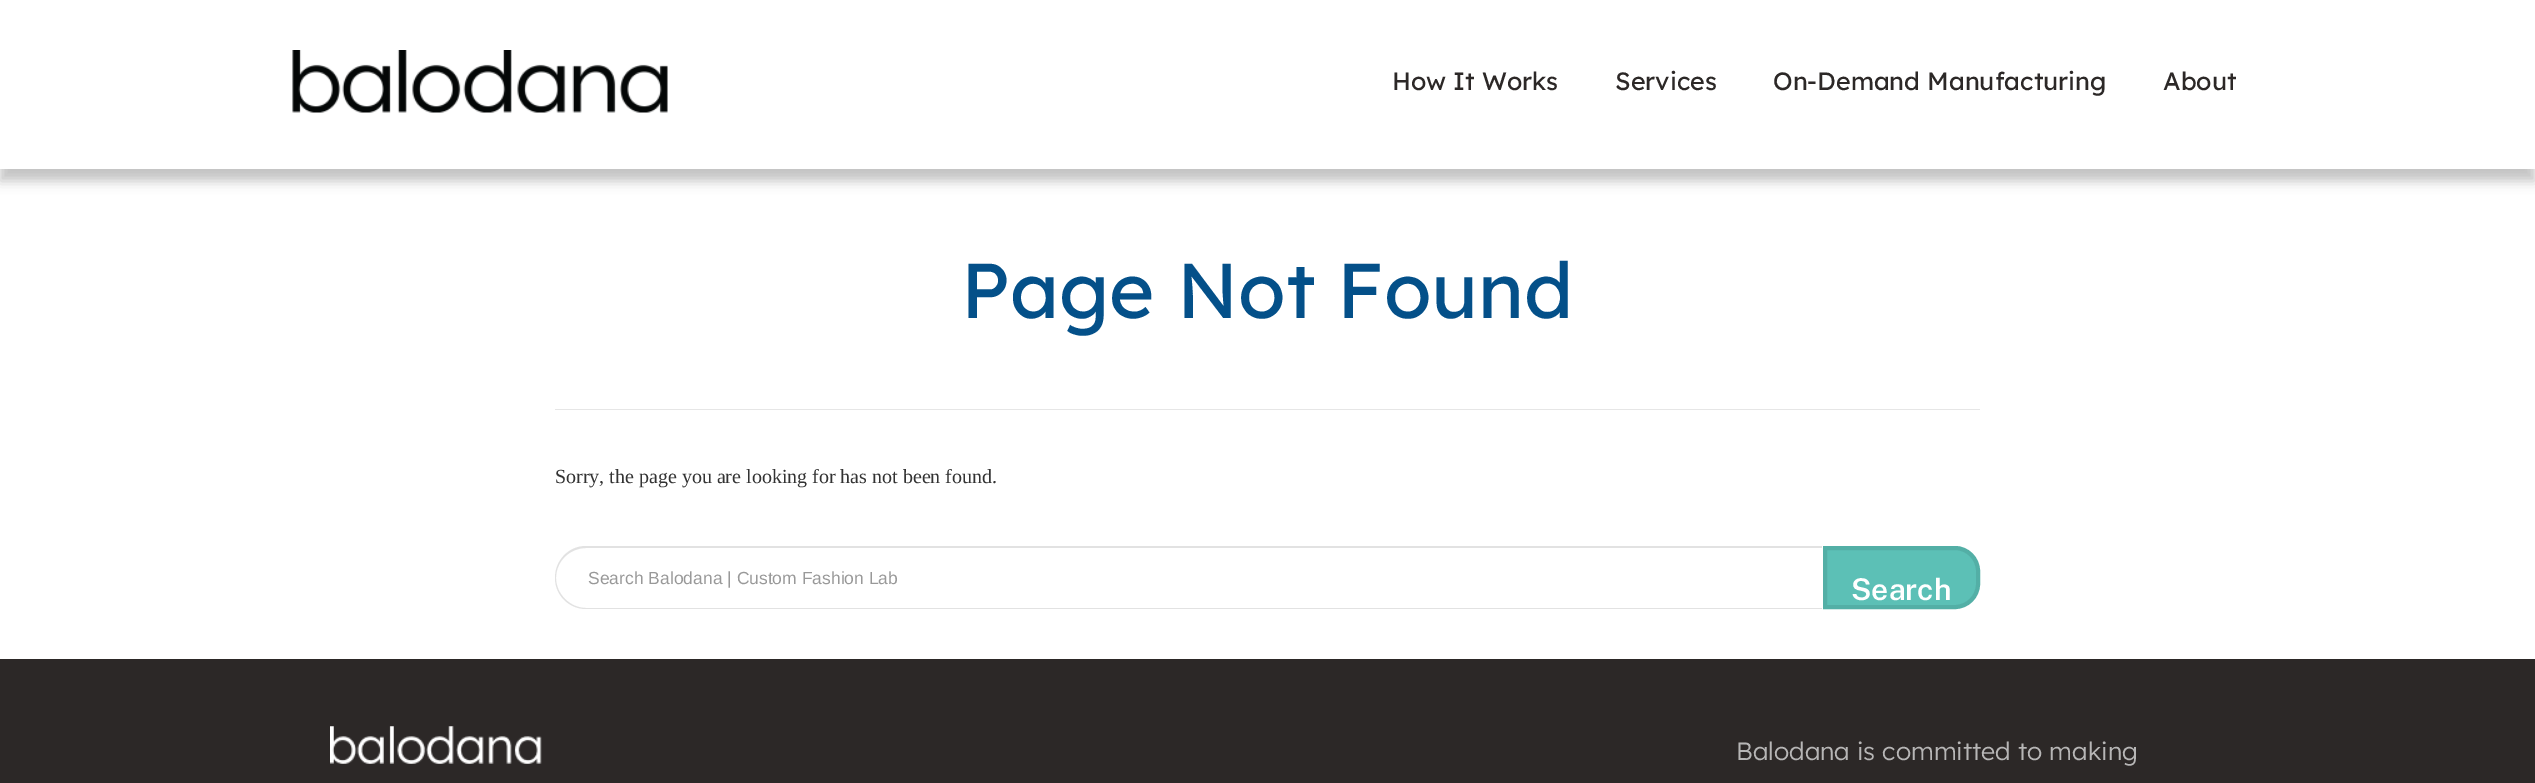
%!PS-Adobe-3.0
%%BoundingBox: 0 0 2535 783
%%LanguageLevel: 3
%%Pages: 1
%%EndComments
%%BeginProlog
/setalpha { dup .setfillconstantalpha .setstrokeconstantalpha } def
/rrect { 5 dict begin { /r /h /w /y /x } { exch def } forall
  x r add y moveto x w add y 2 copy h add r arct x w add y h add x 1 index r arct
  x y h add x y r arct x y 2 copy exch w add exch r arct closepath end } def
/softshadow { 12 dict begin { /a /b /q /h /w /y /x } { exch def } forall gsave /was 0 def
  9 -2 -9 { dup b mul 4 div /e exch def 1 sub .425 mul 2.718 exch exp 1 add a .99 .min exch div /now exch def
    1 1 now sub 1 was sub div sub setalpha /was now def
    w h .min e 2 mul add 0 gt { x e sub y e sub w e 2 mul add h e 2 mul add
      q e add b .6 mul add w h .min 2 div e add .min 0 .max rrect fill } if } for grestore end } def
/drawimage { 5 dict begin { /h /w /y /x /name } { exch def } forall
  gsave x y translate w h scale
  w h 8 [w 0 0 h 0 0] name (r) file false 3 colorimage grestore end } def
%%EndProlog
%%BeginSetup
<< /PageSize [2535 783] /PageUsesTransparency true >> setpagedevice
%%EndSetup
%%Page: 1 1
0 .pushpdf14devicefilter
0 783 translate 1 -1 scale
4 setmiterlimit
1 setgray
0 0 2535 783 rectfill
gsave
newpath 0 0 moveto 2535 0 lineto 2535 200 lineto 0 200 lineto closepath 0 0 moveto 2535 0 lineto 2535 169 lineto 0 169 lineto closepath eoclip newpath
0 setgray
0 13 2535 168 0 6 0.24 softshadow
grestore
(images/1.raw) 292 50 376 63 drawimage
0.902 setgray
555 409 1425 1 rectfill
0.886 setgray
newpath 586 546 moveto 1822 546 lineto 1822 609 lineto 586 609 lineto 569 609 555 595 555 578 curveto 555 560 569 546 586 546 curveto closepath 586 548 moveto 1822 548 lineto 1822 608 lineto 586 608 lineto 570 608 556 594 556 578 curveto 556 561 570 548 586 548 curveto closepath eofill
0.361 0.753 0.714 setrgbcolor
newpath 1825 548 moveto 1955 548 lineto 1967.5 548 1978 558.5 1978 571 curveto 1978 584 lineto 1978 596.5 1967.5 607 1955 607 curveto 1825 607 lineto closepath gsave fill grestore
0.325 0.686 0.651 setrgbcolor
4 setlinewidth
stroke
0.173 0.157 0.153 setrgbcolor
0 659 2535 124 rectfill
(images/2.raw) 330 726 212 38 drawimage
/Lexend-Regular [25 0 0 -25 0 0] selectfont
1392 90 moveto (How It Works) show
1615 90 moveto (Services) show
1773 90 moveto (On-Demand Manufacturing) show
2163 90 moveto (About) show
/Lexend-Regular [77.5 0 0 -77.5 0 0] selectfont
0.016 0.314 0.537 setrgbcolor
961 318 moveto (Page Not Found) show
/LiberationSerif-Regular [20 0 0 -20 0 0] selectfont
0.2 setgray
555 483 moveto (Sorry, the page you are looking for has not been found.) show
/LiberationSans-Regular [17.5 0 0 -17.5 0 0] selectfont
0.6 setgray
588 584 moveto (Search Balodana | Custom Fashion Lab) show
/PublicSans-SemiBold [30 0 0 -30 0 0] selectfont
1 setgray
1851 600 moveto (Search) show
/Lexend-Light [25 0 0 -25 0 0] selectfont
0.718 0.714 0.714 setrgbcolor
1736 760 moveto (Balodana is committed to making) show
.poppdf14devicefilter showpage
%%EOF
